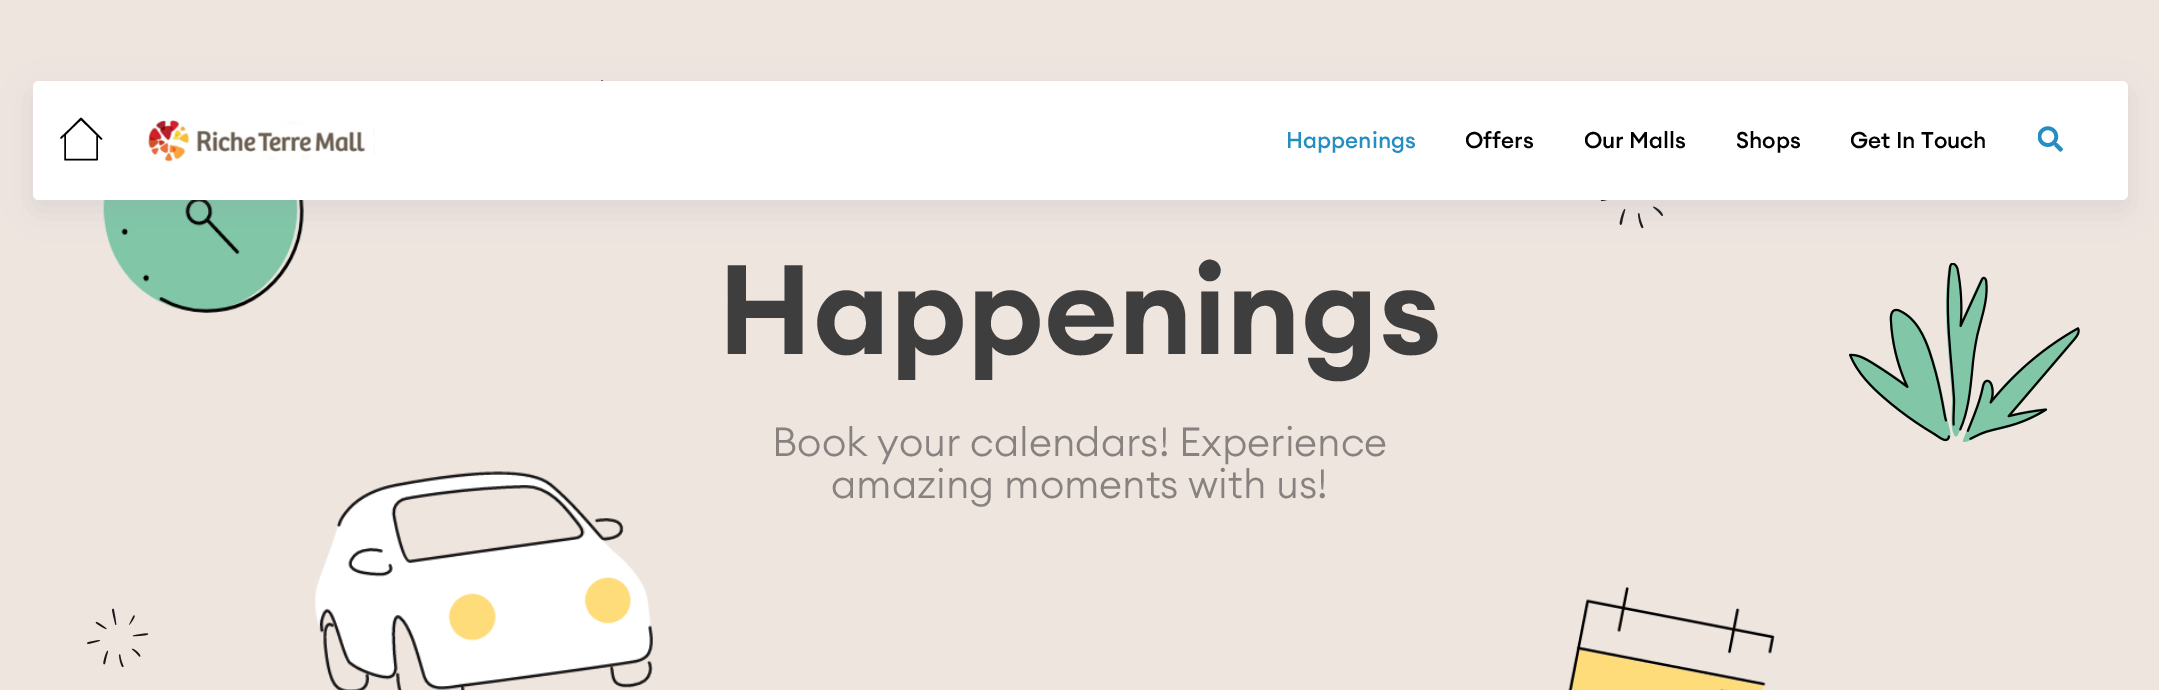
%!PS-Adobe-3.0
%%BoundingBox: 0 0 2159 690
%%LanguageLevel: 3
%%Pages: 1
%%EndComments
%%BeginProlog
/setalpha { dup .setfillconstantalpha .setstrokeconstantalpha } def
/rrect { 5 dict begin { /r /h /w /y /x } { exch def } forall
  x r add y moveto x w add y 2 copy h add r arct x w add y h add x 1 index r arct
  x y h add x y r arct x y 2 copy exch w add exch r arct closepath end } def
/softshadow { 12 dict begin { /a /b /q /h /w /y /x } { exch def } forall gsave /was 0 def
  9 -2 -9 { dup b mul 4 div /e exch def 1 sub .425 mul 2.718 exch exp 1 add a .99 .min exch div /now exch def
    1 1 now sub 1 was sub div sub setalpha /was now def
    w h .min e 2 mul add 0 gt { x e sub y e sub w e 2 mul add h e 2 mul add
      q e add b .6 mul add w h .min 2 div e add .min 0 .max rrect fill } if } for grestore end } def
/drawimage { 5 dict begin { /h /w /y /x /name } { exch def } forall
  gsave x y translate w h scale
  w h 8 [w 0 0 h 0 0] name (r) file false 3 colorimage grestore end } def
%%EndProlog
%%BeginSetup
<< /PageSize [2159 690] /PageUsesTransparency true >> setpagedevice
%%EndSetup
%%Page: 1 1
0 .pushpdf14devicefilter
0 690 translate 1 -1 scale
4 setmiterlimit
0.937 0.898 0.875 setrgbcolor
0 0 2159 690 rectfill
(images/3.raw) 601 80 2 1 drawimage
(images/4.raw) 103 200 201 113 drawimage
(images/5.raw) 1600 200 63 29 drawimage
0.584 0.616 0.647 setrgbcolor
33 91 2095 119 6 15 0.2 softshadow
1 setgray
33 81 2095 119 6 rrect fill
0 setgray
1.6 setlinewidth
1 setlinecap
1 setlinejoin
newpath 65 134.5 moveto 65 159.5 lineto 97 159.5 lineto 97 134.5 lineto 81 118.5 lineto closepath 61 138 moveto 81 119 lineto 101.5 139 lineto stroke
(images/1.raw) 148 120 227 42 drawimage
(images/2.raw) 2038 126 25 26 drawimage
(images/6.raw) 1849 263 231 179 drawimage
(images/7.raw) 87 608 62 60 drawimage
(images/8.raw) 315 471 338 219 drawimage
(images/9.raw) 1568 587 207 103 drawimage
/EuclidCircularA-Medium [22.5 0 0 -22.5 0 0] selectfont
0.141 0.553 0.757 setrgbcolor
1286 148 moveto (Happenings) show
0 setgray
1465 148 moveto (Offers) show
1584 148 moveto (Our Malls) show
1736 148 moveto (Shops) show
1850 148 moveto (Get In Touch) show
/EuclidCircularA-SemiBold [125 0 0 -125 0 0] selectfont
0.243 setgray
718 354 moveto (Happenings) show
/EuclidCircularA-Light [40 0 0 -40 0 0] selectfont
0.529 0.51 0.502 setrgbcolor
772 456 moveto (Book your calendars! Experience) show
831 498 moveto (amazing moments with us!) show
.poppdf14devicefilter showpage
%%EOF
